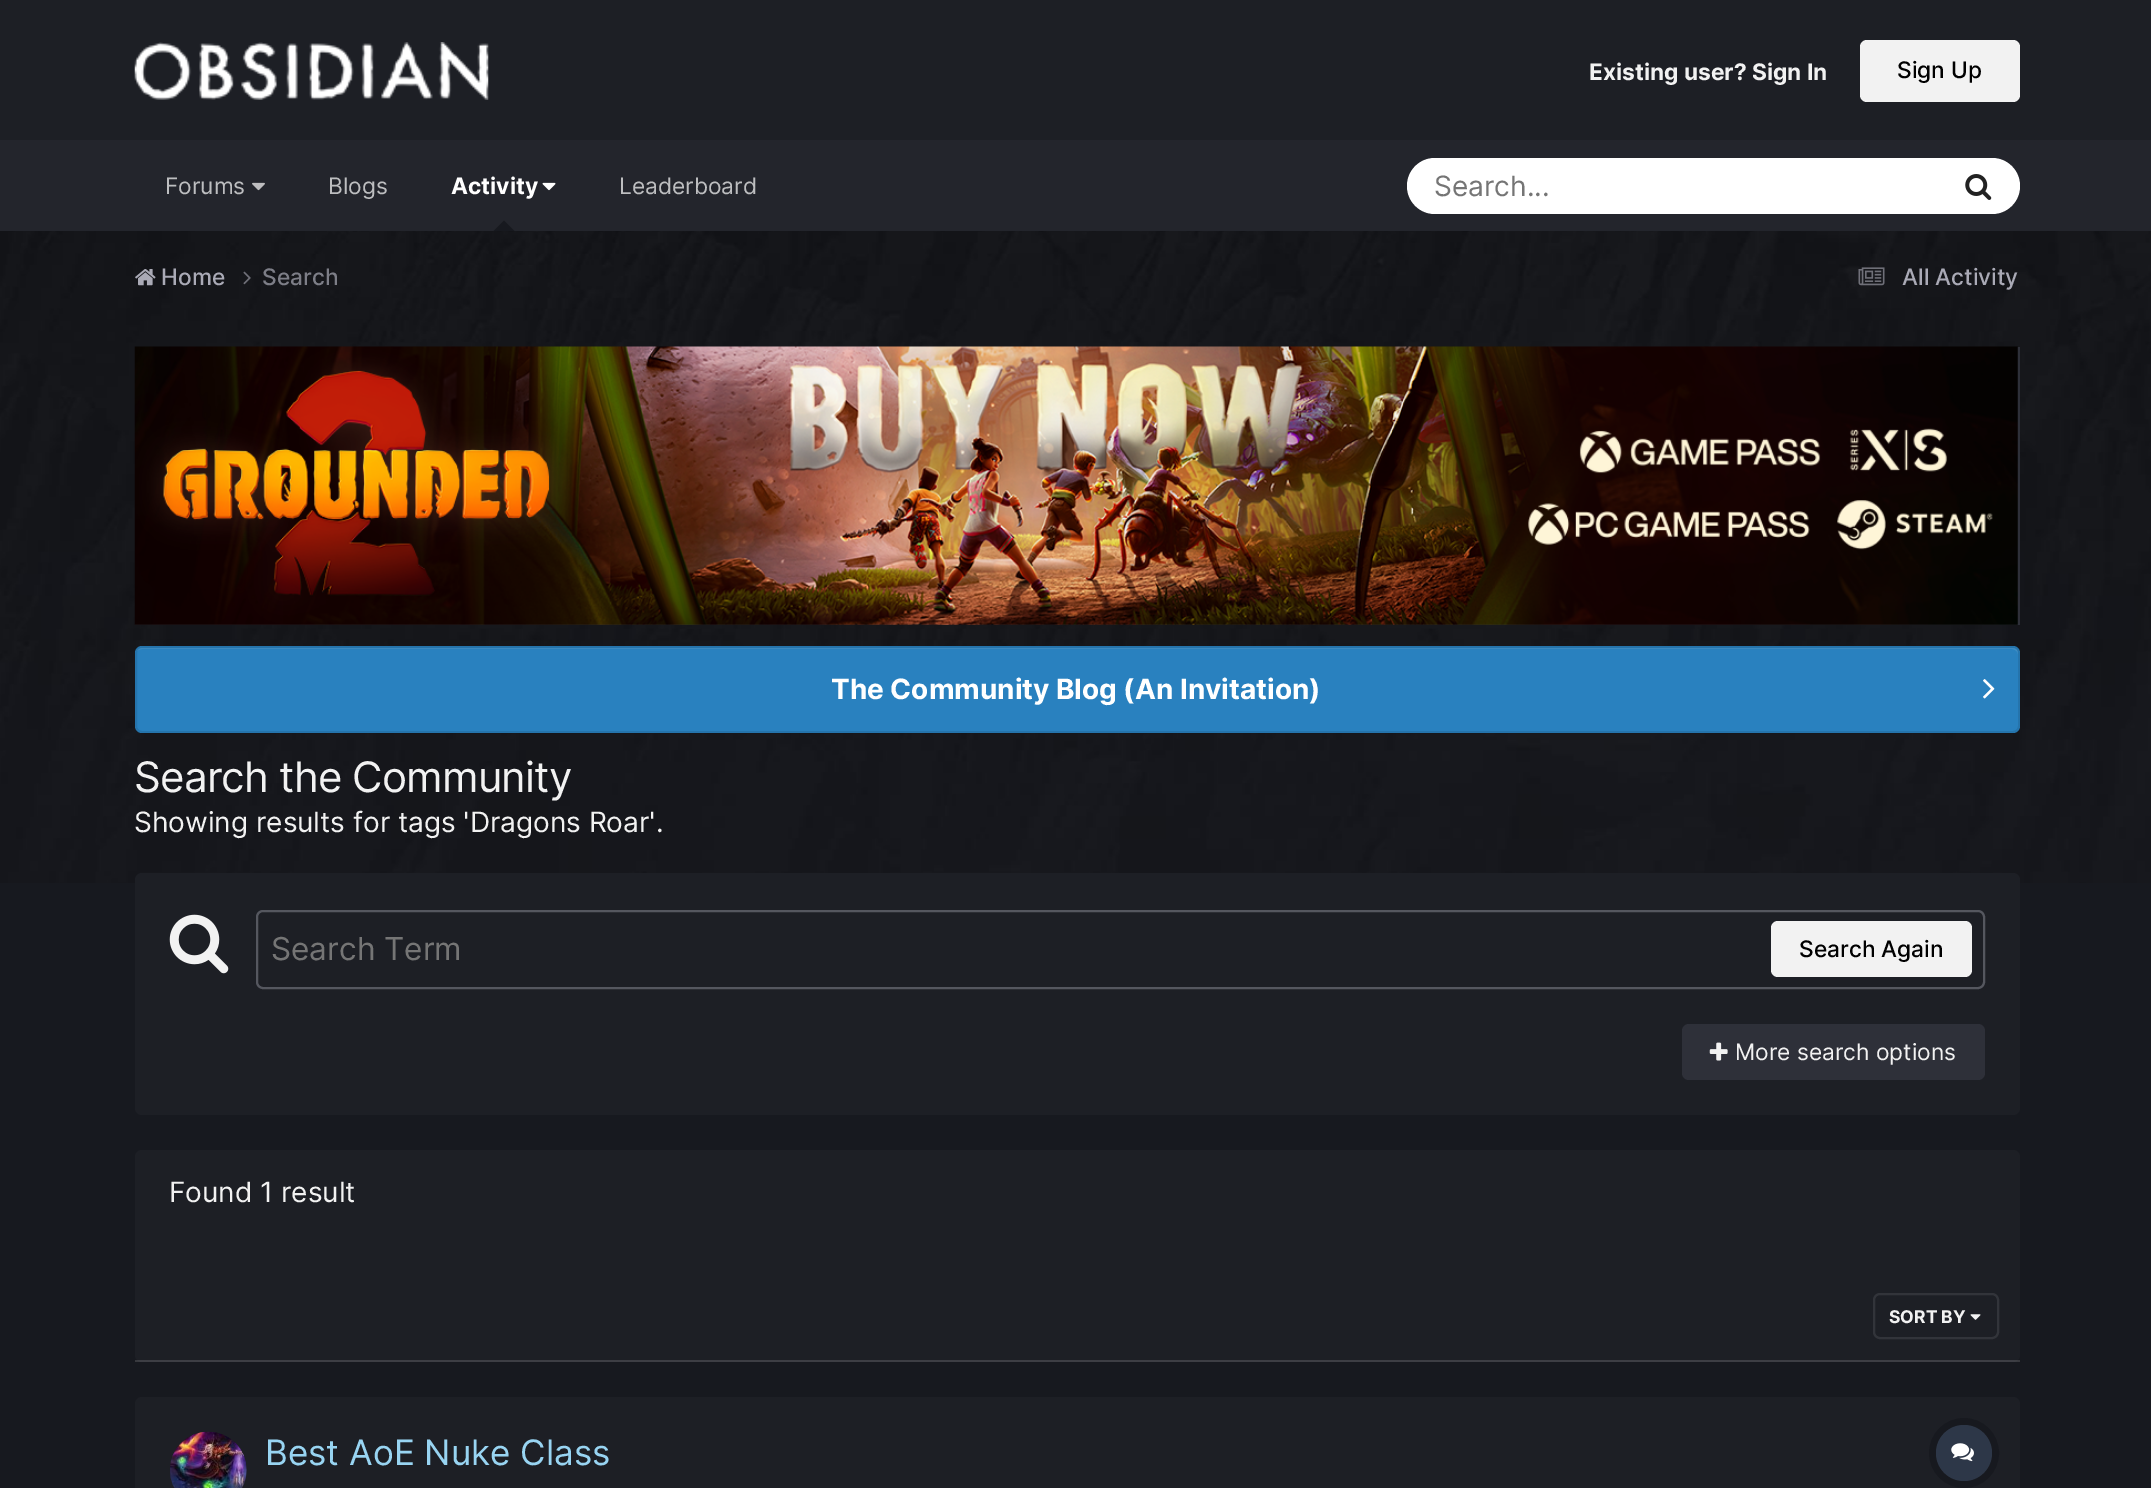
%!PS-Adobe-3.0
%%BoundingBox: 0 0 2151 1488
%%LanguageLevel: 3
%%Pages: 1
%%EndComments
%%BeginProlog
/setalpha { dup .setfillconstantalpha .setstrokeconstantalpha } def
/rrect { 5 dict begin { /r /h /w /y /x } { exch def } forall
  x r add y moveto x w add y 2 copy h add r arct x w add y h add x 1 index r arct
  x y h add x y r arct x y 2 copy exch w add exch r arct closepath end } def
/drawimage { 5 dict begin { /h /w /y /x /name } { exch def } forall
  gsave x y translate w h scale
  w h 8 [w 0 0 h 0 0] name (r) file false 3 colorimage grestore end } def
%%EndProlog
%%BeginSetup
<< /PageSize [2151 1488] /PageUsesTransparency true >> setpagedevice
%%EndSetup
%%Page: 1 1
0 .pushpdf14devicefilter
0 1488 translate 1 -1 scale
4 setmiterlimit
0.09 0.098 0.122 setrgbcolor
0 0 2151 1488 rectfill
0.114 0.122 0.145 setrgbcolor
0 0 2151 140 rectfill
(images/1.raw) 134 42 355 58 drawimage
0.949 setgray
1860 40 160 62 7 rrect fill
0.137 0.145 0.173 setrgbcolor
0 140 2151 91 rectfill
(images/2.raw) 252 182 13 9 drawimage
(images/3.raw) 542 182 14 9 drawimage
0.09 0.098 0.122 setrgbcolor
newpath 514.5 231 moveto 493.5 231 lineto 504 220.5 lineto closepath fill
1 setgray
1407 158 613 56 28 rrect fill
(images/4.raw) 1965 174 27 26 drawimage
(images/5.raw) 0 231 2151 652 drawimage
(images/6.raw) 135 269 21 17 drawimage
(images/7.raw) 243 271 8 14 drawimage
(images/8.raw) 1858 267 27 19 drawimage
0.18 0.188 0.224 setrgbcolor
135 347 1885 278 rectfill
(images/9.raw) 134 346 1884 279 drawimage
0.161 0.506 0.749 setrgbcolor
135 646 1885 87 7 rrect fill
0.243 0.557 0.773 setrgbcolor
newpath 142 649 moveto 2012 649 lineto 2015 649 2018 652 2018 654 curveto 2018 653 lineto 2018 650 2016 648 2013 648 curveto 142 648 lineto 140 648 138 649 137 651 curveto 138 650 140 649 142 649 curveto closepath fill
0.1 setalpha
0 setgray
2 setlinewidth
136 647 1883 85 6 rrect stroke
1 setalpha
(images/10.raw) 1983 679 12 20 drawimage
0.114 0.122 0.145 setrgbcolor
135 873 1885 242 7 rrect fill
(images/11.raw) 169 914 60 60 drawimage
0.333 0.341 0.373 setrgbcolor
257 911 1727 77 6 rrect stroke
0.949 setgray
1771 921 201 56 7 rrect fill
0.18 0.188 0.224 setrgbcolor
1682 1024 303 56 7 rrect fill
(images/12.raw) 1709 1042 19 19 drawimage
0.114 0.122 0.145 setrgbcolor
135 1150 1885 212 7 rrect fill
0.15 setalpha
0.949 setgray
135 1360 1885 2 rectfill
1 setalpha
(images/13.raw) 1970 1314 11 6 drawimage
0.196 0.204 0.227 setrgbcolor
1874 1294 124 44 6 rrect stroke
0.114 0.122 0.145 setrgbcolor
135 1397 1885 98 7 rrect fill
(images/14.raw) 170 1431 77 57 drawimage
0.09 0.098 0.122 setrgbcolor
7 setlinewidth
newpath 1964 1453 31.5 0 360 arc closepath stroke
0.176 0.216 0.282 setrgbcolor
newpath 1964 1453 28 0 360 arc closepath fill
(images/15.raw) 1951 1443 23 19 drawimage
/Inter-Bold [22.75 0 0 -22.75 0 0] selectfont
0.949 setgray
1589 80 moveto (Existing user? Sign In) show
/Inter-Medium [22.75 0 0 -22.75 0 0] selectfont
0 setgray
1897 78 moveto (Sign Up) show
/Inter-Regular [22.75 0 0 -22.75 0 0] selectfont
0.741 0.745 0.753 setrgbcolor
165 194 moveto (Forums) show
328 194 moveto (Blogs) show
/Inter-Bold [22.75 0 0 -22.75 0 0] selectfont
1 setgray
451 194 moveto (Activity) show
/Inter-Regular [22.75 0 0 -22.75 0 0] selectfont
0.741 0.745 0.753 setrgbcolor
619 194 moveto (Leaderboard) show
/Inter-Regular [28 0 0 -28 0 0] selectfont
0.459 setgray
1434 196 moveto (Search...) show
/Inter-Medium [22.75 0 0 -22.75 0 0] selectfont
0.667 0.667 0.714 setrgbcolor
161 285 moveto (Home) show
0.49 0.494 0.529 setrgbcolor
262 285 moveto (Search) show
0.667 0.667 0.714 setrgbcolor
1902 285 moveto (All Activity) show
/Inter-Bold [28 0 0 -28 0 0] selectfont
1 setgray
831 699 moveto (The Community Blog \(An Invitation\)) show
/Inter-Regular [42 0 0 -42 0 0] selectfont
0.949 setgray
134 792 moveto -0.8 0 (Search the Community) ashow
/Inter-Regular [28 0 0 -28 0 0] selectfont
134 832 moveto (Showing results for tags 'Dragons Roar'.) show
/Inter-Regular [31.5 0 0 -31.5 0 0] selectfont
0.459 setgray
271 960 moveto (Search Term) show
/Inter-Medium [22.75 0 0 -22.75 0 0] selectfont
0 setgray
1799 957 moveto (Search Again) show
/Inter-Regular [22.75 0 0 -22.75 0 0] selectfont
0.949 setgray
1735 1060 moveto (More search options) show
/Inter-Regular [28 0 0 -28 0 0] selectfont
169 1202 moveto (Found 1 result) show
/Inter-Bold [17.5 0 0 -17.5 0 0] selectfont
1889 1323 moveto (SORT BY) show
/Inter-Regular [35 0 0 -35 0 0] selectfont
0.596 0.831 0.949 setrgbcolor
265 1465 moveto (Best AoE Nuke Class) show
.poppdf14devicefilter showpage
%%EOF
